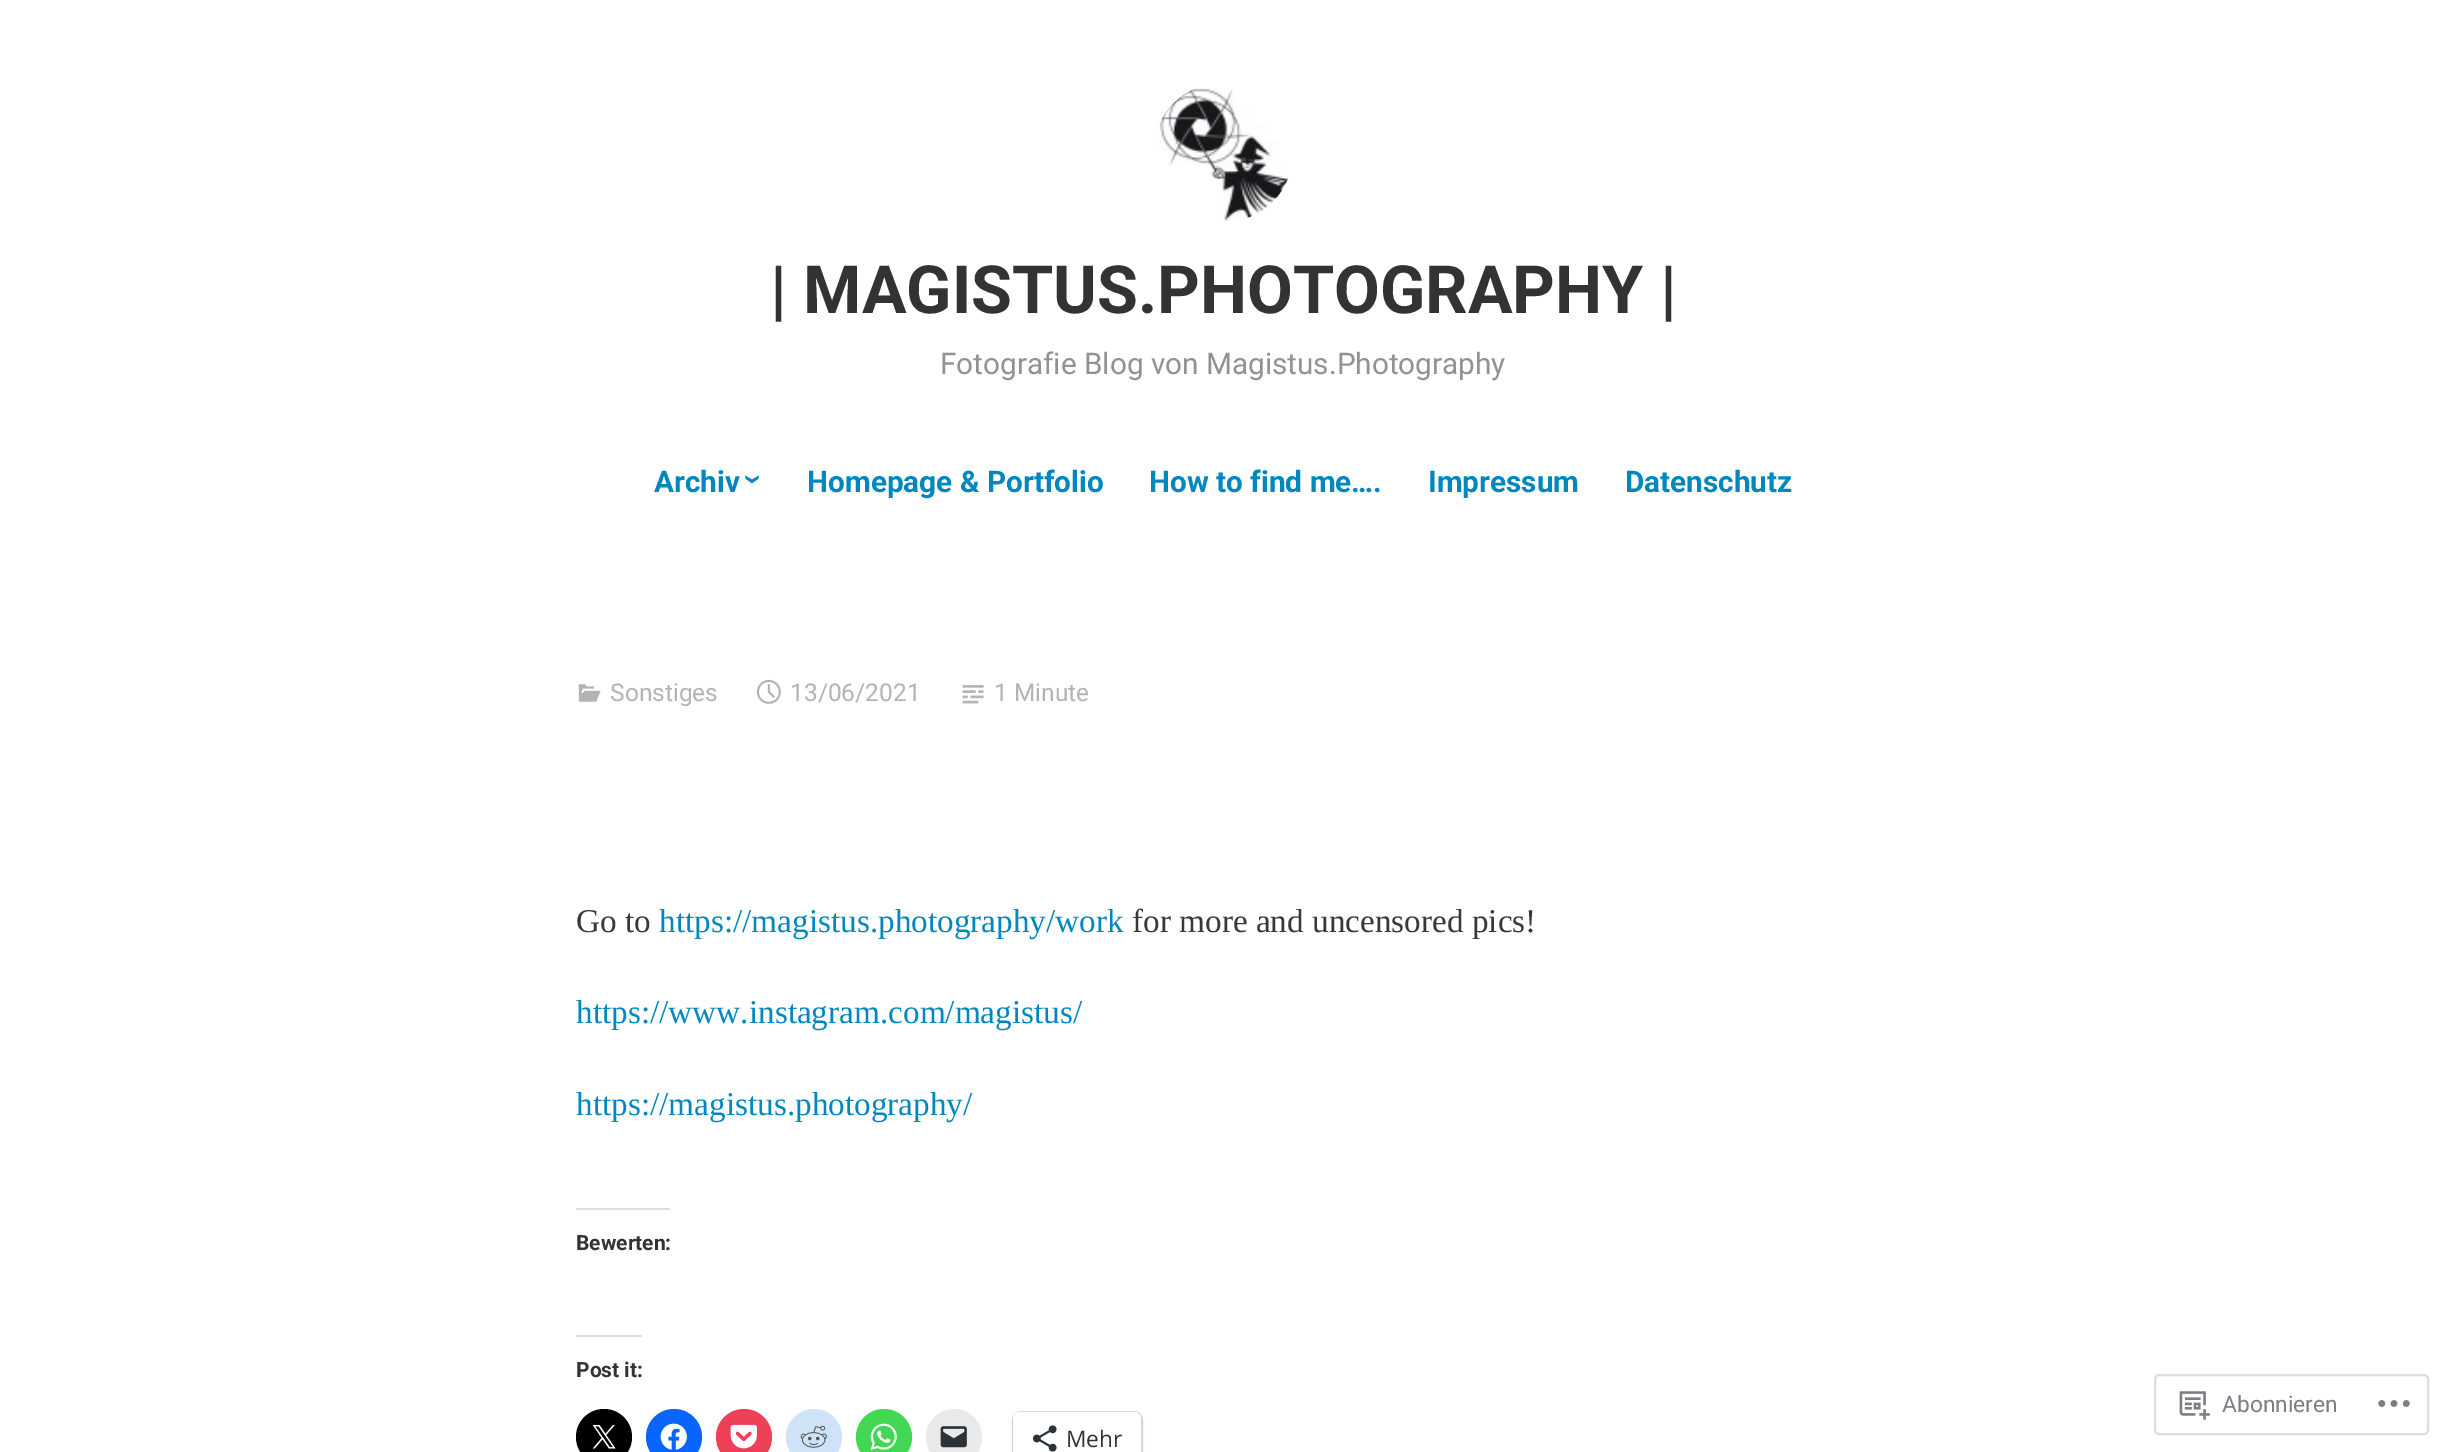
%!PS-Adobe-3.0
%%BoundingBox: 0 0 2446 1452
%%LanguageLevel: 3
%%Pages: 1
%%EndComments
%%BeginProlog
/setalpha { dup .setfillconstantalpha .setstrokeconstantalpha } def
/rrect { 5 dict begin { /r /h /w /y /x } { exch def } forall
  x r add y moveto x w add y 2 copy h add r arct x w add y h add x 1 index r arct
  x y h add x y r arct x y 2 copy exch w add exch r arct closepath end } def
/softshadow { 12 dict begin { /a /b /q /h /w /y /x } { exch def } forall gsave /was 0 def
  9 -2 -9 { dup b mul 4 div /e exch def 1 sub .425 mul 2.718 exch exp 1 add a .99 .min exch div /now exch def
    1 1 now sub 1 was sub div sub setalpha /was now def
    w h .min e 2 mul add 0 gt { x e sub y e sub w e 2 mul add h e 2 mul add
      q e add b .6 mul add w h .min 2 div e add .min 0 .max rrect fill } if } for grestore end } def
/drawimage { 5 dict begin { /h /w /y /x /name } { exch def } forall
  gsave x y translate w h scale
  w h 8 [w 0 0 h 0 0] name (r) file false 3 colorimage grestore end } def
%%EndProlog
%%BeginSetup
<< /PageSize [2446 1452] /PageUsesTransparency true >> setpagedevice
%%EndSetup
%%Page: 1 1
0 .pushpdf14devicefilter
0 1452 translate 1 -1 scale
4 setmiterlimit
1 setgray
0 0 2446 1452 rectfill
(images/1.raw) 1157 88 132 133 drawimage
(images/2.raw) 578 684 23 18 drawimage
(images/3.raw) 756 679 25 25 drawimage
(images/4.raw) 962 685 22 19 drawimage
0.863 0.863 0.871 setrgbcolor
576 1208 94 2 rectfill
576 1335 66 2 rectfill
0 setgray
newpath 604 1437 28 0 360 arc closepath fill
(images/5.raw) 592 1424 24 25 drawimage
0.031 0.4 1 setrgbcolor
newpath 674 1437 28 0 360 arc closepath fill
(images/6.raw) 660 1423 27 27 drawimage
0.933 0.251 0.337 setrgbcolor
newpath 744 1437 28 0 360 arc closepath fill
(images/7.raw) 730 1424 27 25 drawimage
0.808 0.89 0.973 setrgbcolor
newpath 814 1437 28 0 360 arc closepath fill
(images/8.raw) 800 1425 27 23 drawimage
0.263 0.847 0.329 setrgbcolor
newpath 884 1437 28 0 360 arc closepath fill
(images/9.raw) 870 1423 27 27 drawimage
0.914 setgray
newpath 954 1437 28 0 360 arc closepath fill
(images/10.raw) 940 1426 27 22 drawimage
0.878 setgray
2 setlinewidth
1013 1412 129 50 8 rrect stroke
0 setgray
1013 1414 128 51 7 2 0.12 softshadow
1 setgray
1013 1412 128 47 7 rrect fill
(images/11.raw) 1032 1425 25 27 drawimage
0.867 0.867 0.875 setrgbcolor
2155 1375 273 59 4 rrect stroke
(images/12.raw) 2179 1391 31 29 drawimage
(images/13.raw) 2378 1400 32 7 drawimage
/Roboto-Bold [66.5 0 0 -66.5 0 0] selectfont
0.2 0.2 0.196 setrgbcolor
770 313 moveto (| MAGISTUS.PHOTOGRAPHY |) show
/Roboto-Regular [29.75 0 0 -29.75 0 0] selectfont
0.573 setgray
940 374 moveto (Fotografie Blog von Magistus.Photography) show
/Roboto-Bold [29.75 0 0 -29.75 0 0] selectfont
0 0.529 0.745 setrgbcolor
654 492 moveto (Archiv) show
/Roboto-Bold [35 0 0 -35 0 0] selectfont
gsave 743 474 translate 90 rotate 0 0 moveto (›) show grestore
/Roboto-Bold [29.75 0 0 -29.75 0 0] selectfont
807 492 moveto (Homepage & Portfolio) show
1149 492 moveto (How to find me….) show
1428 492 moveto (Impressum) show
1625 492 moveto (Datenschutz) show
/Roboto-Regular [24.5 0 0 -24.5 0 0] selectfont
0.702 0.702 0.694 setrgbcolor
610 701 moveto (Sonstiges) show
790 701 moveto (13/06/2021) show
994 701 moveto (1 Minute) show
/LiberationSerif-Regular [33.25 0 0 -33.25 0 0] selectfont
0.22 setgray
576 932 moveto (Go to) show
0 0.529 0.745 setrgbcolor
659 932 moveto (https://magistus.photography/work) show
0.22 setgray
1132 932 moveto (for more and uncensored pics!) show
0 0.529 0.745 setrgbcolor
576 1023 moveto (https://www.instagram.com/magistus/) show
576 1115 moveto (https://magistus.photography/) show
/Roboto-Bold [21 0 0 -21 0 0] selectfont
0.2 0.2 0.196 setrgbcolor
576 1250 moveto (Bewerten:) show
576 1377 moveto (Post it:) show
/OpenSans-Regular [22.75 0 0 -22.75 0 0] selectfont
0.173 0.2 0.22 setrgbcolor
1066 1447 moveto (Mehr) show
/Roboto-Regular [22.75 0 0 -22.75 0 0] selectfont
0.482 0.498 0.522 setrgbcolor
2222 1412 moveto (Abonnieren) show
.poppdf14devicefilter showpage
%%EOF
